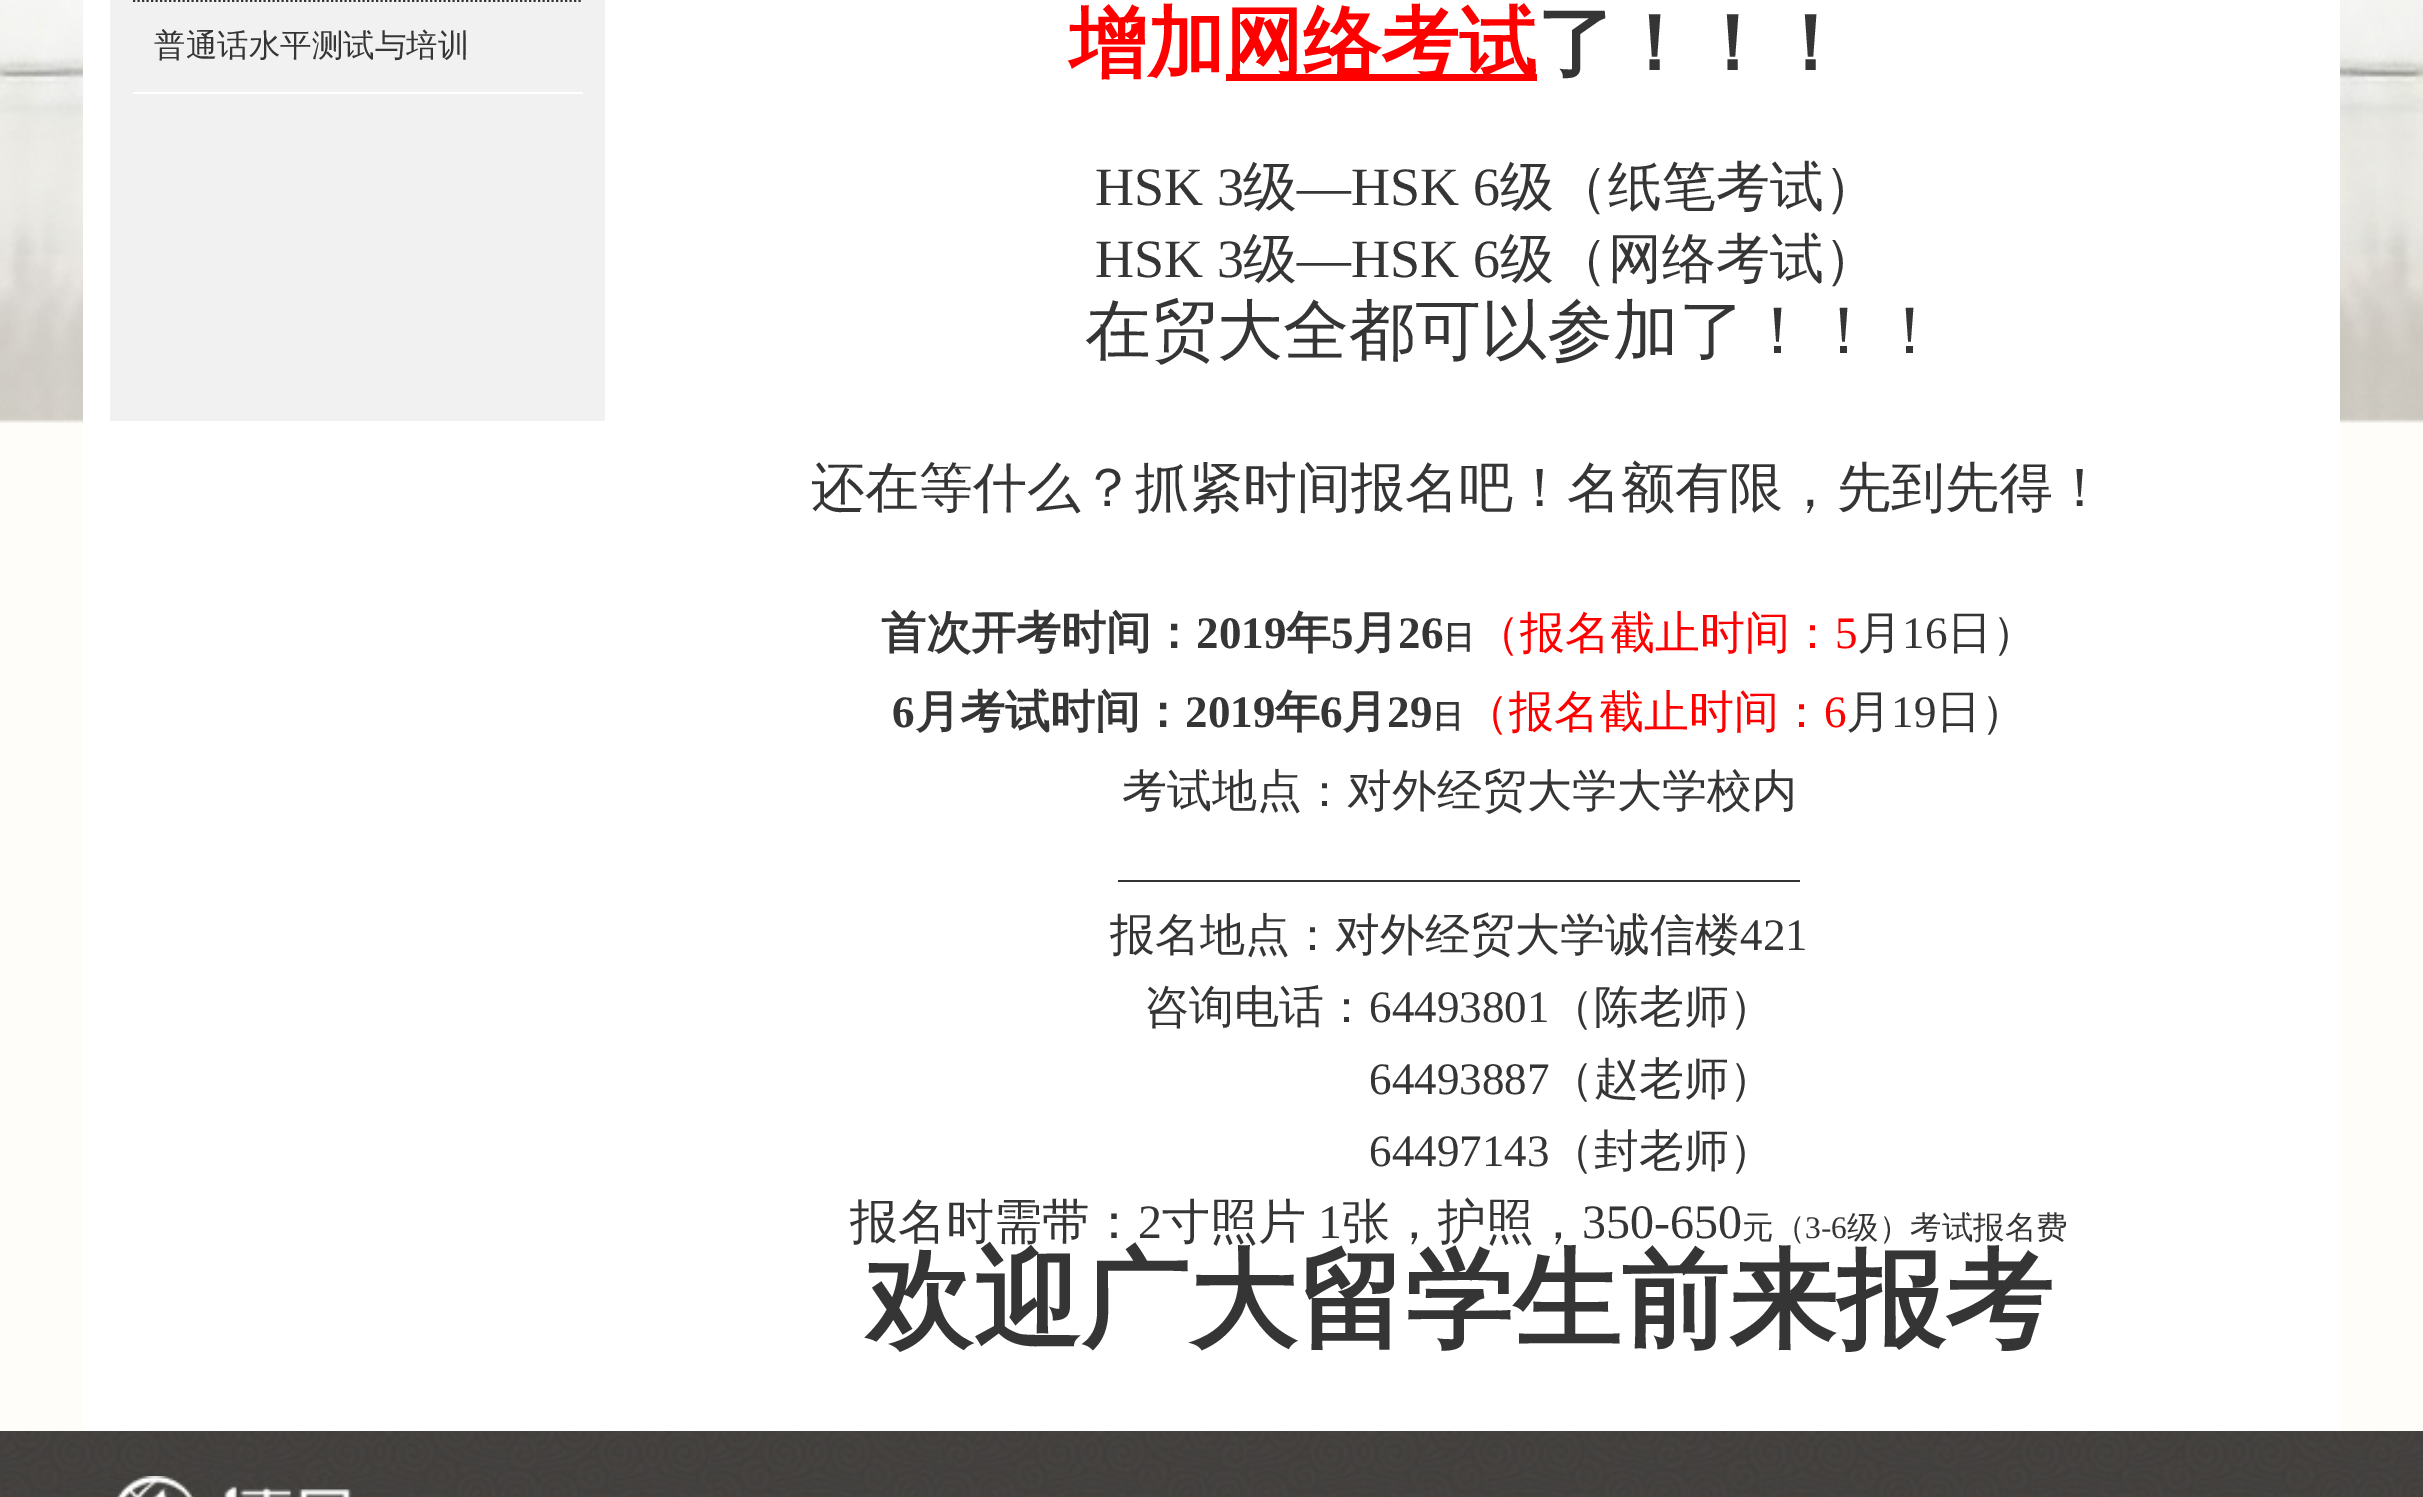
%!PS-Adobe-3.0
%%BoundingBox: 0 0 2423 1497
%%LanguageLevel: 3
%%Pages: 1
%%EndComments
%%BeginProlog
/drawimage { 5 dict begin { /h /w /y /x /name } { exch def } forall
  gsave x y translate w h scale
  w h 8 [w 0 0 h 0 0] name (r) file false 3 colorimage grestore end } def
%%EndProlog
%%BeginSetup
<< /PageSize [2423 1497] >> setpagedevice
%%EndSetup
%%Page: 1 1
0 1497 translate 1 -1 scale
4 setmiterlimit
0.996 0.992 0.98 setrgbcolor
0 0 2423 1497 rectfill
(images/1.raw) 0 0 2423 423 drawimage
1 setgray
83 0 2257 1431 rectfill
0.945 setgray
110 0 495 421 rectfill
gsave
133 0 450 2 rectclip
0.208 setgray
2.2 setlinewidth
[2.25 2.25] 0 setdash
newpath 133 1 moveto 583 1 lineto stroke
grestore
1 setgray
133 92 450 2 rectfill
1 0 0 setrgbcolor
1226 74 311 7 rectfill
0.2 setgray
1118 880 682 2 rectfill
(images/2.raw) 0 1431 2423 66 drawimage
(images/3.raw) 106 1476 249 21 drawimage
/WenQuanYiZenHei-Medium [31.5 0 0 -31.5 0 0] selectfont
0.208 setgray
154 56 moveto (普通话水平测试与培训) show
/WenQuanYiZenHei-Bold [78 0 0 -78 0 0] selectfont
1 0 0 setrgbcolor
1069 70 moveto (增加) show
1225 70 moveto (网络考试) show
0.208 setgray
1537 70 moveto (了！！！) show
/LiberationSerif-Regular [54 0 0 -54 0 0] selectfont
1095 205 moveto (HSK 3) show
/WenQuanYiZenHei-Medium [54 0 0 -54 0 0] selectfont
1243 205 moveto (级) show
/LiberationSerif-Regular [54 0 0 -54 0 0] selectfont
1297 205 moveto (—HSK 6) show
/WenQuanYiZenHei-Medium [54 0 0 -54 0 0] selectfont
1500 205 moveto (级（纸笔考试）) show
/LiberationSerif-Regular [54 0 0 -54 0 0] selectfont
1095 277 moveto (HSK 3) show
/WenQuanYiZenHei-Medium [54 0 0 -54 0 0] selectfont
1243 277 moveto (级) show
/LiberationSerif-Regular [54 0 0 -54 0 0] selectfont
1297 277 moveto (—HSK 6) show
/WenQuanYiZenHei-Medium [54 0 0 -54 0 0] selectfont
1500 277 moveto (级（网络考试）) show
/WenQuanYiZenHei-Medium [66 0 0 -66 0 0] selectfont
1085 353 moveto (在贸大全都可以参加了！！！) show
/WenQuanYiZenHei-Medium [54 0 0 -54 0 0] selectfont
811 506 moveto (还在等什么？抓紧时间报名吧！名额有限，先到先得！) show
/WenQuanYiZenHei-Bold [45 0 0 -45 0 0] selectfont
881 648 moveto (首次开考时间：) show
/LiberationSerif-Bold [45 0 0 -45 0 0] selectfont
1196 648 moveto (2019) show
/WenQuanYiZenHei-Bold [45 0 0 -45 0 0] selectfont
1286 648 moveto (年) show
/LiberationSerif-Bold [45 0 0 -45 0 0] selectfont
1331 648 moveto (5) show
/WenQuanYiZenHei-Bold [45 0 0 -45 0 0] selectfont
1353 648 moveto (月) show
/LiberationSerif-Bold [45 0 0 -45 0 0] selectfont
1398 648 moveto (26) show
/WenQuanYiZenHei-Bold [31.5 0 0 -31.5 0 0] selectfont
1443 648 moveto (日) show
/WenQuanYiZenHei-Medium [45 0 0 -45 0 0] selectfont
1 0 0 setrgbcolor
1475 648 moveto (（报名截止时间：) show
/LiberationSerif-Regular [45 0 0 -45 0 0] selectfont
1835 648 moveto (5) show
/WenQuanYiZenHei-Medium [45 0 0 -45 0 0] selectfont
0.208 setgray
1857 648 moveto (月) show
/LiberationSerif-Regular [45 0 0 -45 0 0] selectfont
1902 648 moveto (16) show
/WenQuanYiZenHei-Medium [45 0 0 -45 0 0] selectfont
1947 648 moveto (日）) show
/LiberationSerif-Bold [45 0 0 -45 0 0] selectfont
892 727 moveto (6) show
/WenQuanYiZenHei-Bold [45 0 0 -45 0 0] selectfont
915 727 moveto (月考试时间：) show
/LiberationSerif-Bold [45 0 0 -45 0 0] selectfont
1185 727 moveto (2019) show
/WenQuanYiZenHei-Bold [45 0 0 -45 0 0] selectfont
1275 727 moveto (年) show
/LiberationSerif-Bold [45 0 0 -45 0 0] selectfont
1320 727 moveto (6) show
/WenQuanYiZenHei-Bold [45 0 0 -45 0 0] selectfont
1342 727 moveto (月) show
/LiberationSerif-Bold [45 0 0 -45 0 0] selectfont
1387 727 moveto (29) show
/WenQuanYiZenHei-Bold [31.5 0 0 -31.5 0 0] selectfont
1432 727 moveto (日) show
/WenQuanYiZenHei-Medium [45 0 0 -45 0 0] selectfont
1 0 0 setrgbcolor
1464 727 moveto (（报名截止时间：) show
/LiberationSerif-Regular [45 0 0 -45 0 0] selectfont
1824 727 moveto (6) show
/WenQuanYiZenHei-Medium [45 0 0 -45 0 0] selectfont
0.208 setgray
1846 727 moveto (月) show
/LiberationSerif-Regular [45 0 0 -45 0 0] selectfont
1891 727 moveto (19) show
/WenQuanYiZenHei-Medium [45 0 0 -45 0 0] selectfont
1936 727 moveto (日）) show
1122 806 moveto (考试地点：对外经贸大学大学校内) show
1110 950 moveto (报名地点：对外经贸大学诚信楼) show
/LiberationSerif-Regular [45 0 0 -45 0 0] selectfont
1740 950 moveto (421) show
/WenQuanYiZenHei-Medium [45 0 0 -45 0 0] selectfont
1144 1022 moveto (咨询电话：) show
/LiberationSerif-Regular [45 0 0 -45 0 0] selectfont
1369 1022 moveto (64493801) show
/WenQuanYiZenHei-Medium [45 0 0 -45 0 0] selectfont
1549 1022 moveto (（陈老师）) show
/LiberationSerif-Regular [45 0 0 -45 0 0] selectfont
1369 1094 moveto (64493887) show
/WenQuanYiZenHei-Medium [45 0 0 -45 0 0] selectfont
1549 1094 moveto (（赵老师）) show
/LiberationSerif-Regular [45 0 0 -45 0 0] selectfont
1369 1166 moveto (64497143) show
/WenQuanYiZenHei-Medium [45 0 0 -45 0 0] selectfont
1549 1166 moveto (（封老师）) show
/WenQuanYiZenHei-Medium [48 0 0 -48 0 0] selectfont
850 1238 moveto (报名时需带：) show
/LiberationSerif-Regular [48 0 0 -48 0 0] selectfont
1138 1238 moveto (2) show
/WenQuanYiZenHei-Medium [48 0 0 -48 0 0] selectfont
1162 1238 moveto (寸照片) show
/LiberationSerif-Regular [48 0 0 -48 0 0] selectfont
1318 1238 moveto (1) show
/WenQuanYiZenHei-Medium [48 0 0 -48 0 0] selectfont
1342 1238 moveto (张，护照，) show
/LiberationSerif-Regular [48 0 0 -48 0 0] selectfont
1582 1238 moveto (350-650) show
/WenQuanYiZenHei-Medium [31.5 0 0 -31.5 0 0] selectfont
1742 1238 moveto (元（) show
/LiberationSerif-Regular [31.5 0 0 -31.5 0 0] selectfont
1805 1238 moveto (3-6) show
/WenQuanYiZenHei-Medium [31.5 0 0 -31.5 0 0] selectfont
1847 1238 moveto (级）考试报名费) show
/WenQuanYiZenHei-Bold [108 0 0 -108 0 0] selectfont
865 1337 moveto (欢迎广大留学生前来报考) show
showpage
%%EOF
